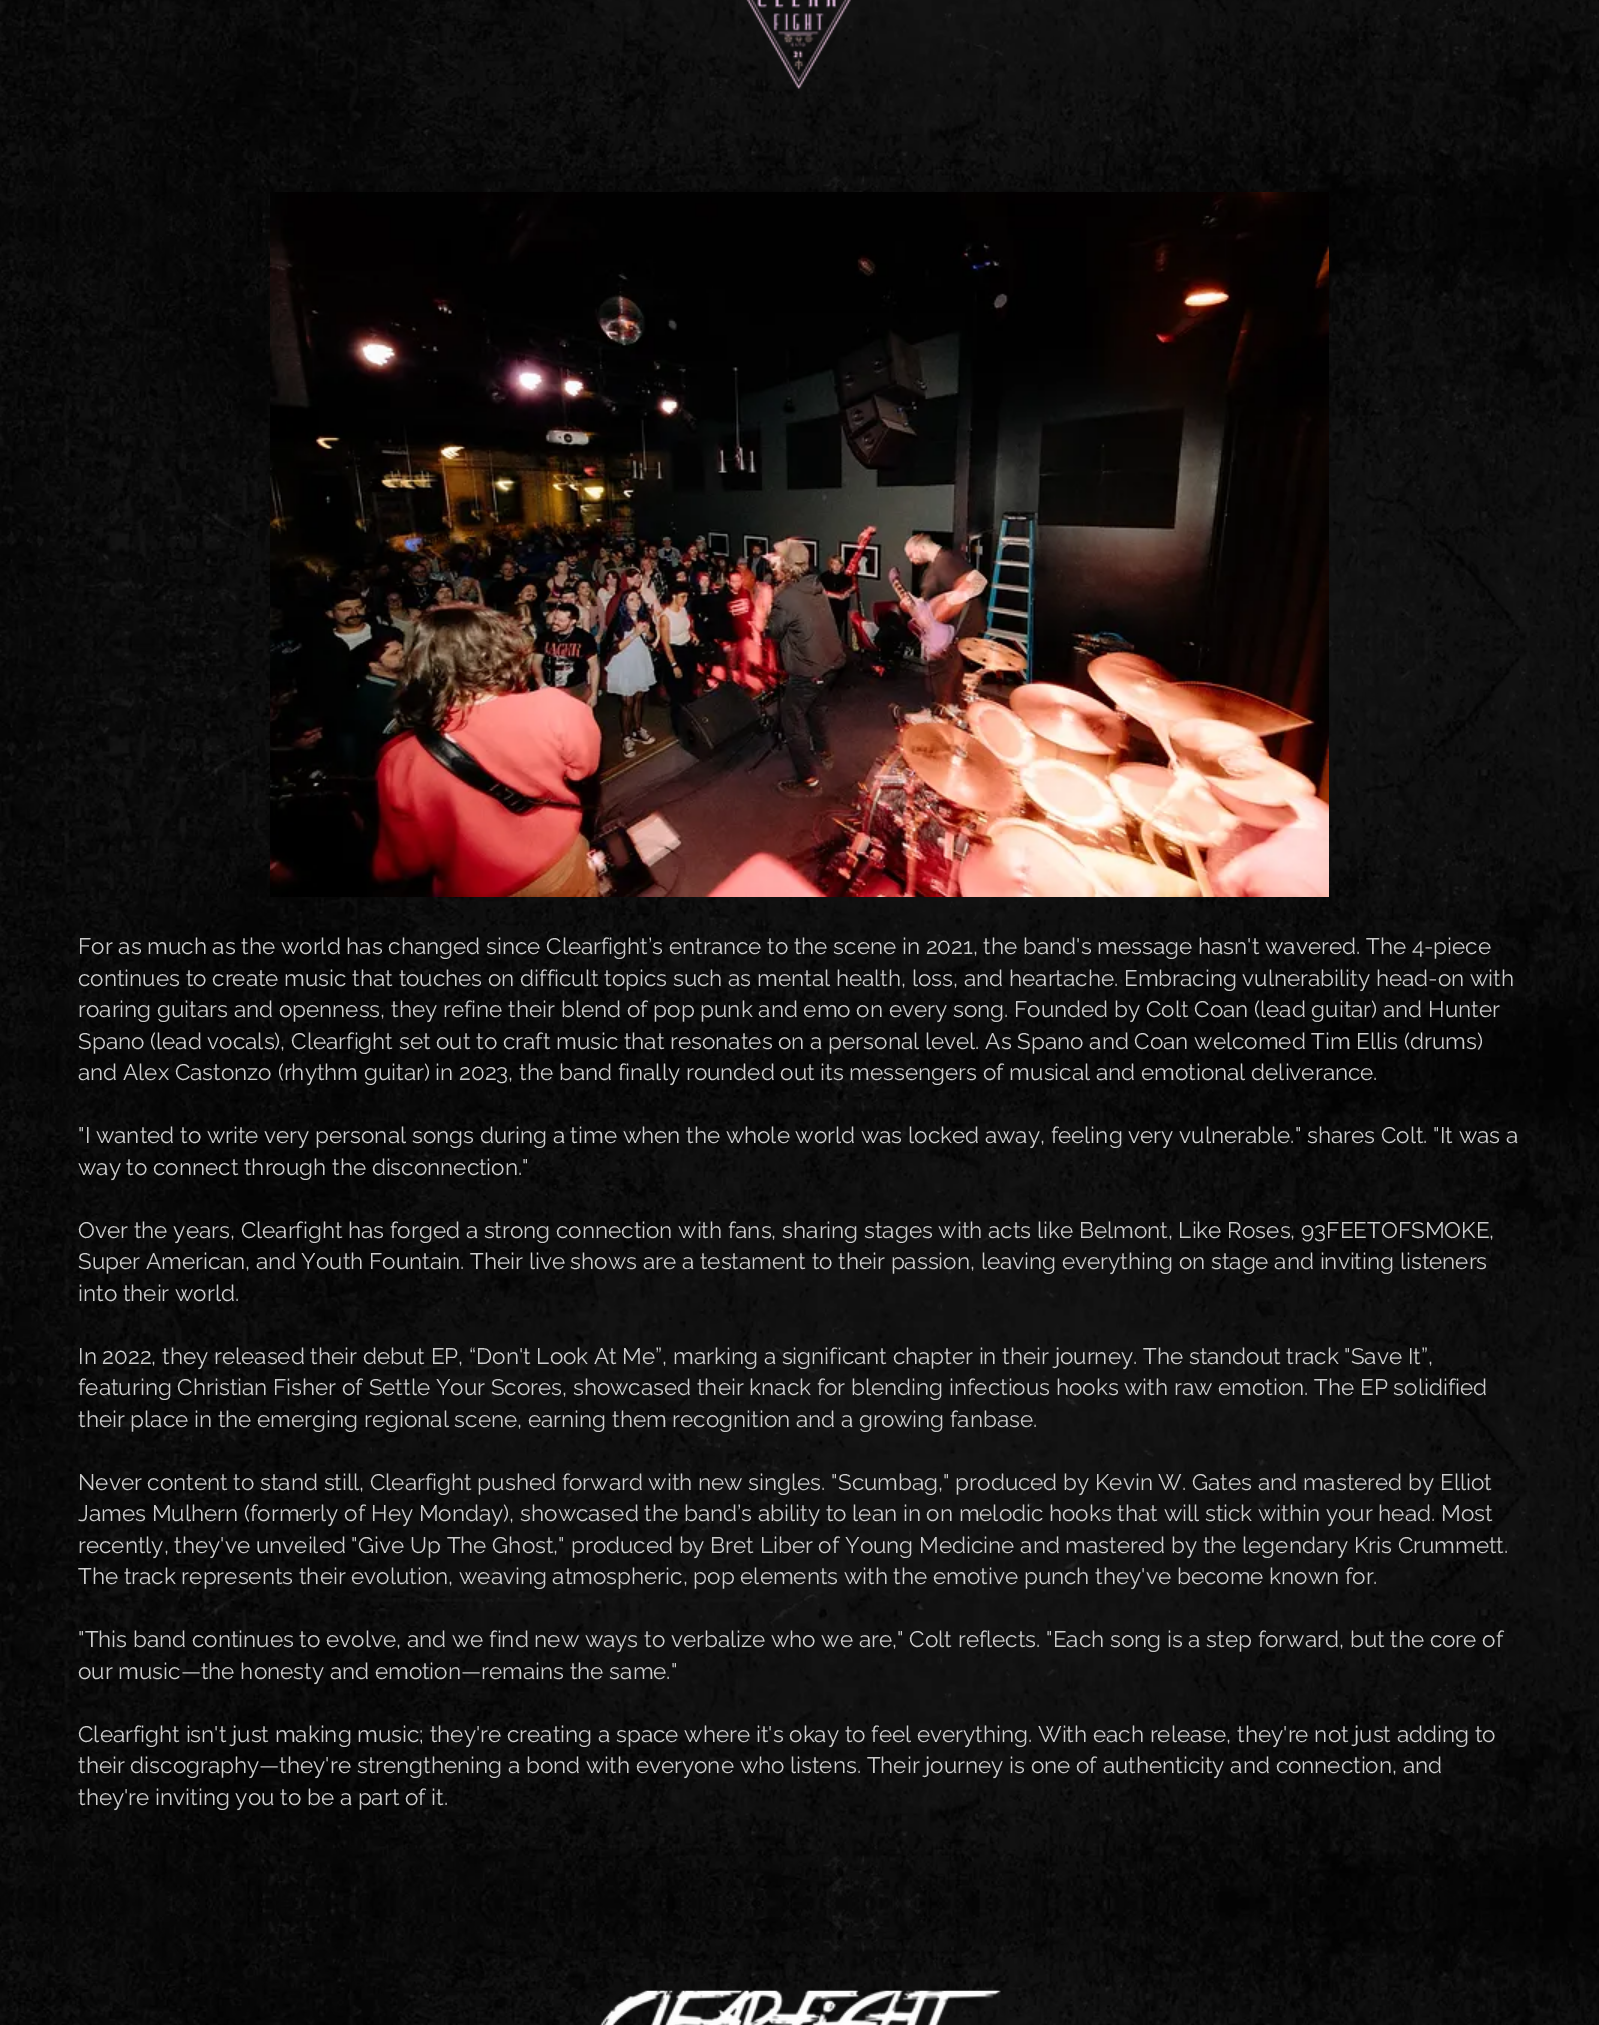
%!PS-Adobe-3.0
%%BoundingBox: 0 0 1599 2025
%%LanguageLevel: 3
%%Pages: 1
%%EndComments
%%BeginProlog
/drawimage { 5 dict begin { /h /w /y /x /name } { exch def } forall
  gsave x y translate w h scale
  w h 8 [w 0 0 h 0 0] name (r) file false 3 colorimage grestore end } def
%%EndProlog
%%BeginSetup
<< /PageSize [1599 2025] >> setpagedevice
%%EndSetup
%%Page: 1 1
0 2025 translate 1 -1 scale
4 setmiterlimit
1 setgray
0 0 1599 2025 rectfill
(images/1.raw) 0 0 1599 2025 drawimage
(images/2.raw) 746 0 105 89 drawimage
(images/3.raw) 270 192 1059 705 drawimage
(images/4.raw) 599 1990 402 35 drawimage
/Raleway-Regular [22.5 0 0 -22.5 0 0] selectfont
0.8 setgray
78 954 moveto (For as much as the world has changed since Clearfight’s entrance to the scene in 2021, the band's message hasn't wavered. The 4-piece) show
78 986 moveto (continues to create music that touches on difficult topics such as mental health, loss, and heartache. Embracing vulnerability head-on with) show
78 1017 moveto (roaring guitars and openness, they refine their blend of pop punk and emo on every song. Founded by Colt Coan \(lead guitar\) and Hunter) show
78 1049 moveto (Spano \(lead vocals\), Clearfight set out to craft music that resonates on a personal level. As Spano and Coan welcomed Tim Ellis \(drums\)) show
78 1080 moveto (and Alex Castonzo \(rhythm guitar\) in 2023, the band finally rounded out its messengers of musical and emotional deliverance.) show
78 1143 moveto ("I wanted to write very personal songs during a time when the whole world was locked away, feeling very vulnerable." shares Colt. "It was a) show
78 1175 moveto (way to connect through the disconnection.") show
78 1238 moveto (Over the years, Clearfight has forged a strong connection with fans, sharing stages with acts like Belmont, Like Roses, 93FEETOFSMOKE,) show
78 1269 moveto (Super American, and Youth Fountain. Their live shows are a testament to their passion, leaving everything on stage and inviting listeners) show
78 1301 moveto (into their world.) show
78 1364 moveto (In 2022, they released their debut EP, “Don't Look At Me”, marking a significant chapter in their journey. The standout track "Save It”,) show
78 1395 moveto (featuring Christian Fisher of Settle Your Scores, showcased their knack for blending infectious hooks with raw emotion. The EP solidified) show
78 1427 moveto (their place in the emerging regional scene, earning them recognition and a growing fanbase.) show
78 1490 moveto (Never content to stand still, Clearfight pushed forward with new singles. "Scumbag," produced by Kevin W. Gates and mastered by Elliot) show
78 1521 moveto (James Mulhern \(formerly of Hey Monday\), showcased the band’s ability to lean in on melodic hooks that will stick within your head. Most) show
78 1553 moveto (recently, they've unveiled "Give Up The Ghost," produced by Bret Liber of Young Medicine and mastered by the legendary Kris Crummett.) show
78 1584 moveto (The track represents their evolution, weaving atmospheric, pop elements with the emotive punch they've become known for.) show
78 1647 moveto ("This band continues to evolve, and we find new ways to verbalize who we are," Colt reflects. "Each song is a step forward, but the core of) show
78 1679 moveto (our music—the honesty and emotion—remains the same.") show
78 1742 moveto (Clearfight isn't just making music; they're creating a space where it's okay to feel everything. With each release, they're not just adding to) show
78 1773 moveto (their discography—they're strengthening a bond with everyone who listens. Their journey is one of authenticity and connection, and) show
78 1805 moveto (they're inviting you to be a part of it.) show
showpage
%%EOF
